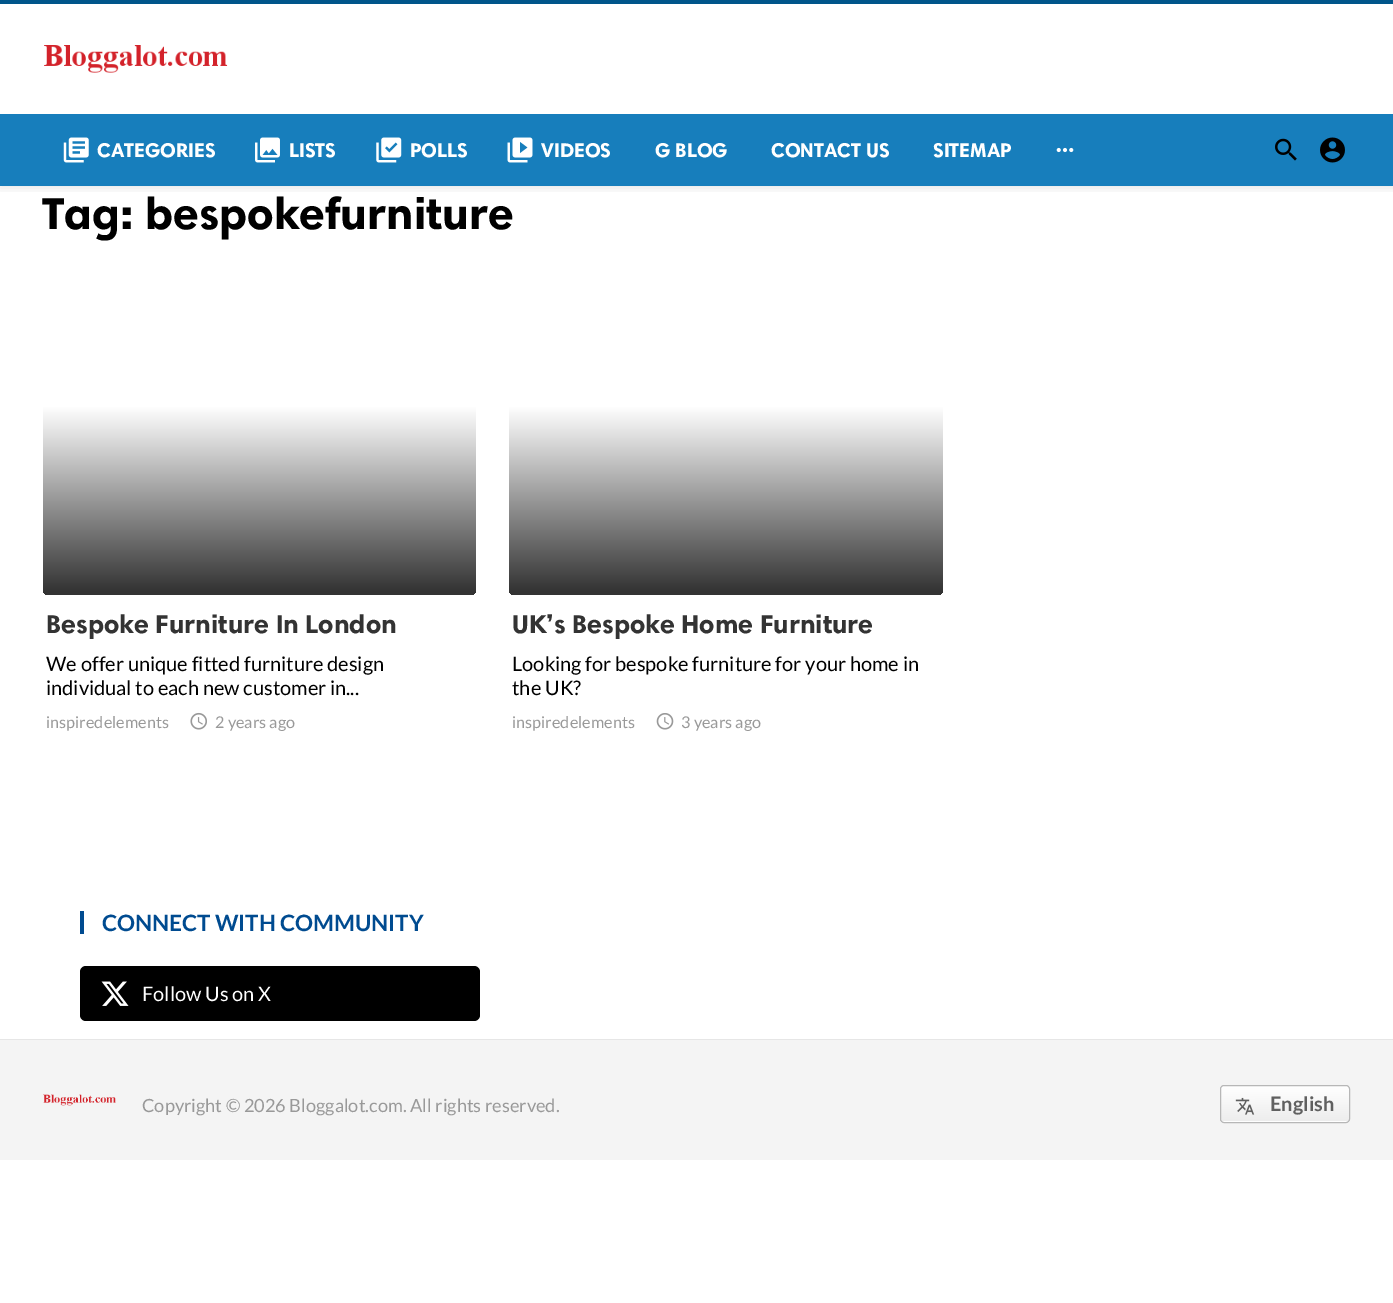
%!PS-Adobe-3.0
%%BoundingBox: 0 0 1393 1303
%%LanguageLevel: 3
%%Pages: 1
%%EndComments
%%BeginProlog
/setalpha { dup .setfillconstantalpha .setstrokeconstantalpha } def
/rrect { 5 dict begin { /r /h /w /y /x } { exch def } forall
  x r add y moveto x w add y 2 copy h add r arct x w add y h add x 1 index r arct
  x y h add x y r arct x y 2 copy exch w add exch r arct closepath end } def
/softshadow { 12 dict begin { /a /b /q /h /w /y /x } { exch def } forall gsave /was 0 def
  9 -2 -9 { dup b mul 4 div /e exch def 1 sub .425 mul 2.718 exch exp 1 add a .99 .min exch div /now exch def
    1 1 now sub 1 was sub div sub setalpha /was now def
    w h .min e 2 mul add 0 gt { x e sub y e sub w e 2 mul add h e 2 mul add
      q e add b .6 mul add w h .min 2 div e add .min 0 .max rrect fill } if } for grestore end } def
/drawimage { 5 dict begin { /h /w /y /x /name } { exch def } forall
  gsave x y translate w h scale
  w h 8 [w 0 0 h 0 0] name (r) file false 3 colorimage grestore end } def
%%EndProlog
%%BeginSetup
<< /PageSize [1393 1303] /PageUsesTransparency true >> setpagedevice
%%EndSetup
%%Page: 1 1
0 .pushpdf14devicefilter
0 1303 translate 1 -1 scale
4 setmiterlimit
1 setgray
0 0 1393 1303 rectfill
gsave
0 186 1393 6 rectclip
0 setgray
0 1 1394 187 0 5 0.1 softshadow
grestore
0 0.333 0.541 setrgbcolor
0 0 1393 4 rectfill
(images/1.raw) 44 45 184 28 drawimage
0.09 0.494 0.737 setrgbcolor
0 114 1393 72 rectfill
(images/2.raw) 63 137 26 26 drawimage
(images/3.raw) 255 137 25 26 drawimage
(images/4.raw) 376 137 26 26 drawimage
(images/5.raw) 507 137 26 26 drawimage
(images/6.raw) 1056 147 18 6 drawimage
(images/7.raw) 1275 138 22 23 drawimage
(images/8.raw) 1320 137 25 26 drawimage
gsave 43 253 433 342 5 rrect clip newpath
<< /ShadingType 2 /ColorSpace /DeviceRGB /Coords [259 252 259 595] /Extend [true true] /Function << /FunctionType 3 /Domain [0 1] /Functions [<< /FunctionType 2 /Domain [0 1] /C0 [1 1 1] /C1 [1 1 1] /N 1 >> << /FunctionType 2 /Domain [0 1] /C0 [1 1 1] /C1 [0.2 0.2 0.2] /N 1 >> << /FunctionType 2 /Domain [0 1] /C0 [0.2 0.2 0.2] /C1 [0.2 0.2 0.2] /N 1 >>] /Bounds [0.45 0.99] /Encode [0 1 0 1 0 1] >> >> shfill grestore
(images/9.raw) 190 712 17 18 drawimage
gsave 509 253 434 342 5 rrect clip newpath
<< /ShadingType 2 /ColorSpace /DeviceRGB /Coords [726 252 726 595] /Extend [true true] /Function << /FunctionType 3 /Domain [0 1] /Functions [<< /FunctionType 2 /Domain [0 1] /C0 [1 1 1] /C1 [1 1 1] /N 1 >> << /FunctionType 2 /Domain [0 1] /C0 [1 1 1] /C1 [0.2 0.2 0.2] /N 1 >> << /FunctionType 2 /Domain [0 1] /C0 [0.2 0.2 0.2] /C1 [0.2 0.2 0.2] /N 1 >>] /Bounds [0.45 0.99] /Encode [0 1 0 1 0 1] >> >> shfill grestore
(images/10.raw) 656 713 18 17 drawimage
0 0.294 0.565 setrgbcolor
80 911 4 23 rectfill
0 setgray
80 966 400 55 6 rrect fill
(images/11.raw) 101 981 28 25 drawimage
0.957 setgray
0 1040 1393 120 rectfill
0.902 setgray
0 1039 1393 1 rectfill
(images/12.raw) 43 1094 73 12 drawimage
gsave
1220 1085 130 38 4 rrect clip newpath
gsave newpath 1220 1086 moveto 1350 1086 lineto 1350 1121 lineto 1220 1121 lineto closepath clip newpath
<< /ShadingType 2 /ColorSpace /DeviceRGB /Coords [1285 1086 1285 1121] /Extend [true true] /Function << /FunctionType 2 /Domain [0 1] /C0 [1 1 1] /C1 [0.929 0.929 0.929] /N 1 >> >> shfill grestore
gsave newpath 1220 1121 moveto 1350 1121 lineto 1350 1123 lineto 1220 1123 lineto closepath clip newpath
<< /ShadingType 2 /ColorSpace /DeviceRGB /Coords [1285 1121 1285 1156] /Extend [true true] /Function << /FunctionType 2 /Domain [0 1] /C0 [1 1 1] /C1 [0.929 0.929 0.929] /N 1 >> >> shfill grestore
grestore
0.718 setgray
1220.5 1085.5 129 37 3.5 rrect stroke
(images/13.raw) 1235 1097 20 18 drawimage
/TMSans-Bold [20 0 0 -20 0 0] selectfont
1 setgray
97 157 moveto (CATEGORIES) show
289 157 moveto (LISTS) show
410 157 moveto (POLLS) show
541 157 moveto (VIDEOS) show
655 157 moveto (G BLOG) show
771 157 moveto (CONTACT US) show
933 157 moveto (SITEMAP) show
/TMSans-Bold [45 0 0 -45 0 0] selectfont
0 setgray
42 229 moveto (Tag: bespokefurniture) show
/TMSans-Bold [26 0 0 -26 0 0] selectfont
0.2 setgray
46 633 moveto (Bespoke Furniture In London) show
/Lato-Regular [20 0 0 -20 0 0] selectfont
0 setgray
46 671 moveto (We offer unique fitted furniture design) show
46 695 moveto (individual to each new customer in...) show
/Lato-Regular [16.25 0 0 -16.25 0 0] selectfont
0.6 setgray
46 728 moveto (inspiredelements) show
215 728 moveto (2 years ago) show
/TMSans-Bold [26 0 0 -26 0 0] selectfont
0.2 setgray
512 633 moveto (UK’s Bespoke Home Furniture) show
/Lato-Regular [20 0 0 -20 0 0] selectfont
0 setgray
512 671 moveto (Looking for bespoke furniture for your home in) show
512 695 moveto (the UK?) show
/Lato-Regular [16.25 0 0 -16.25 0 0] selectfont
0.6 setgray
512 728 moveto (inspiredelements) show
681 728 moveto (3 years ago) show
/Lato-Bold [22.5 0 0 -22.5 0 0] selectfont
0 0.294 0.565 setrgbcolor
102 931 moveto (CONNECT WITH COMMUNITY) show
/Lato-Regular [20 0 0 -20 0 0] selectfont
1 setgray
142 1001 moveto (Follow Us on X) show
/Lato-Regular [18.2 0 0 -18.2 0 0] selectfont
0.6 setgray
142 1112 moveto (Copyright © 2026 Bloggalot.com. All rights reserved.) show
/Lato-Bold [20 0 0 -20 0 0] selectfont
0.376 setgray
1270 1111 moveto (English) show
.poppdf14devicefilter showpage
%%EOF
